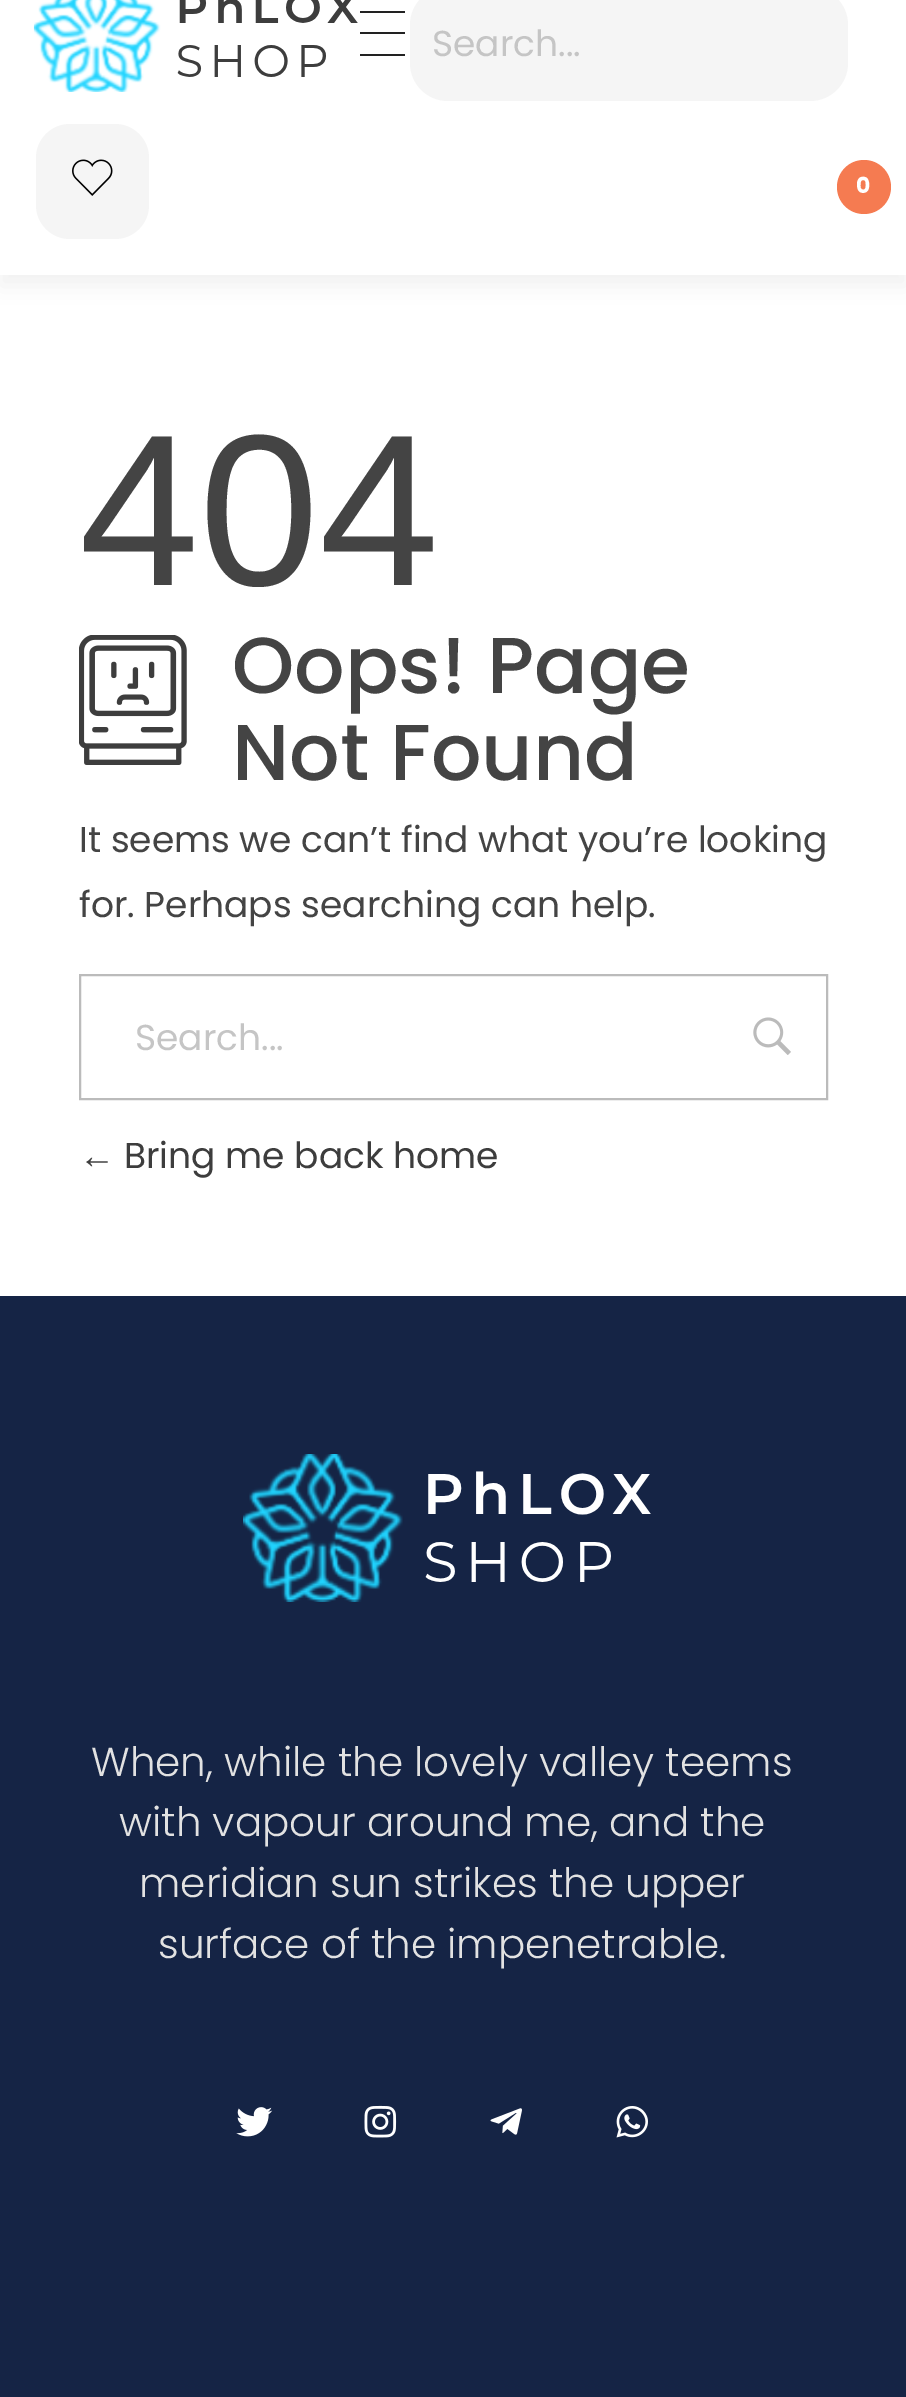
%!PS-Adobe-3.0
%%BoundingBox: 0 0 906 2397
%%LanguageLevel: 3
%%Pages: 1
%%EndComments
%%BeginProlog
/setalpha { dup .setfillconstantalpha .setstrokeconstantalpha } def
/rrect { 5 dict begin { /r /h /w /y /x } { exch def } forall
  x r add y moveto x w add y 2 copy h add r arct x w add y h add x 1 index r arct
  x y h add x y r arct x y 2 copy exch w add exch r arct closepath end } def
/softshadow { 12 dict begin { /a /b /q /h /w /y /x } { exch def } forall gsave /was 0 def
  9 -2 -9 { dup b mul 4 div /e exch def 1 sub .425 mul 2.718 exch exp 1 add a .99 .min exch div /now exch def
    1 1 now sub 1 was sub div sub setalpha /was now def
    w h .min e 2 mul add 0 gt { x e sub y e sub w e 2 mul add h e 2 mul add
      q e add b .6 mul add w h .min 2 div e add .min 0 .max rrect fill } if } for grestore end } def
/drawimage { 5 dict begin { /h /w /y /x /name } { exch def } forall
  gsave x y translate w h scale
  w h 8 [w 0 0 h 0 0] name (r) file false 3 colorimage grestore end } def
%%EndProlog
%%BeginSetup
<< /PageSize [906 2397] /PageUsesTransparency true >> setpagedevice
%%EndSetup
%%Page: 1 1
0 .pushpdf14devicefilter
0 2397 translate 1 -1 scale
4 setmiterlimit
1 setgray
0 0 906 2397 rectfill
gsave
newpath 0 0 moveto 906 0 lineto 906 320 lineto 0 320 lineto closepath 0 -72 moveto 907 -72 lineto 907 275 lineto 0 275 lineto closepath eoclip newpath
0 setgray
0 -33 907 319 0 11 0.05 softshadow
grestore
(images/1.raw) 33 0 325 92 drawimage
0.133 setgray
360 11 45 2 rectfill
360 32 45 2 rectfill
360 54 45 2 rectfill
0.961 setgray
410 -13 438 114 38 rrect fill
36 124 113 115 34 rrect fill
(images/2.raw) 72 159 41 37 drawimage
0.961 0.482 0.318 setrgbcolor
newpath 864 187 27 0 360 arc closepath fill
(images/3.raw) 79 635 108 130 drawimage
0.733 setgray
2 setlinewidth
80 975 747 124 rectstroke
(images/4.raw) 753 1017 38 38 drawimage
0.082 0.141 0.271 setrgbcolor
0 1296 906 1101 rectfill
(images/5.raw) 243 1454 408 148 drawimage
(images/6.raw) 236 2107 37 30 drawimage
(images/7.raw) 364 2105 33 33 drawimage
(images/8.raw) 490 2108 32 27 drawimage
(images/9.raw) 616 2106 32 32 drawimage
/Poppins-Regular [36 0 0 -36 0 0] selectfont
0.773 setgray
432 56 moveto (Search...) show
/Poppins-Bold [22 0 0 -22 0 0] selectfont
1 setgray
856 193 moveto (0) show
/LiberationSans-Regular [216 0 0 -216 0 0] selectfont
0.267 setgray
79 585 moveto (404) show
/Poppins-Medium [79.25 0 0 -79.25 0 0] selectfont
232 693 moveto (Oops! Page) show
232 780 moveto (Not Found) show
/Poppins-Regular [36 0 0 -36 0 0] selectfont
79 852 moveto (It seems we can’t find what you’re looking) show
79 917 moveto (for. Perhaps searching can help.) show
0.773 setgray
135 1050 moveto (Search...) show
/LiberationSans-Regular [36 0 0 -36 0 0] selectfont
0.239 setgray
79 1168 moveto (←) show
/Poppins-Regular [36 0 0 -36 0 0] selectfont
124 1168 moveto (Bring me back home) show
/Poppins-Light [40.5 0 0 -40.5 0 0] selectfont
0.886 setgray
91 1776 moveto (When, while the lovely valley teems) show
119 1836 moveto (with vapour around me, and the) show
139 1897 moveto (meridian sun strikes the upper) show
158 1958 moveto (surface of the impenetrable.) show
.poppdf14devicefilter showpage
%%EOF
